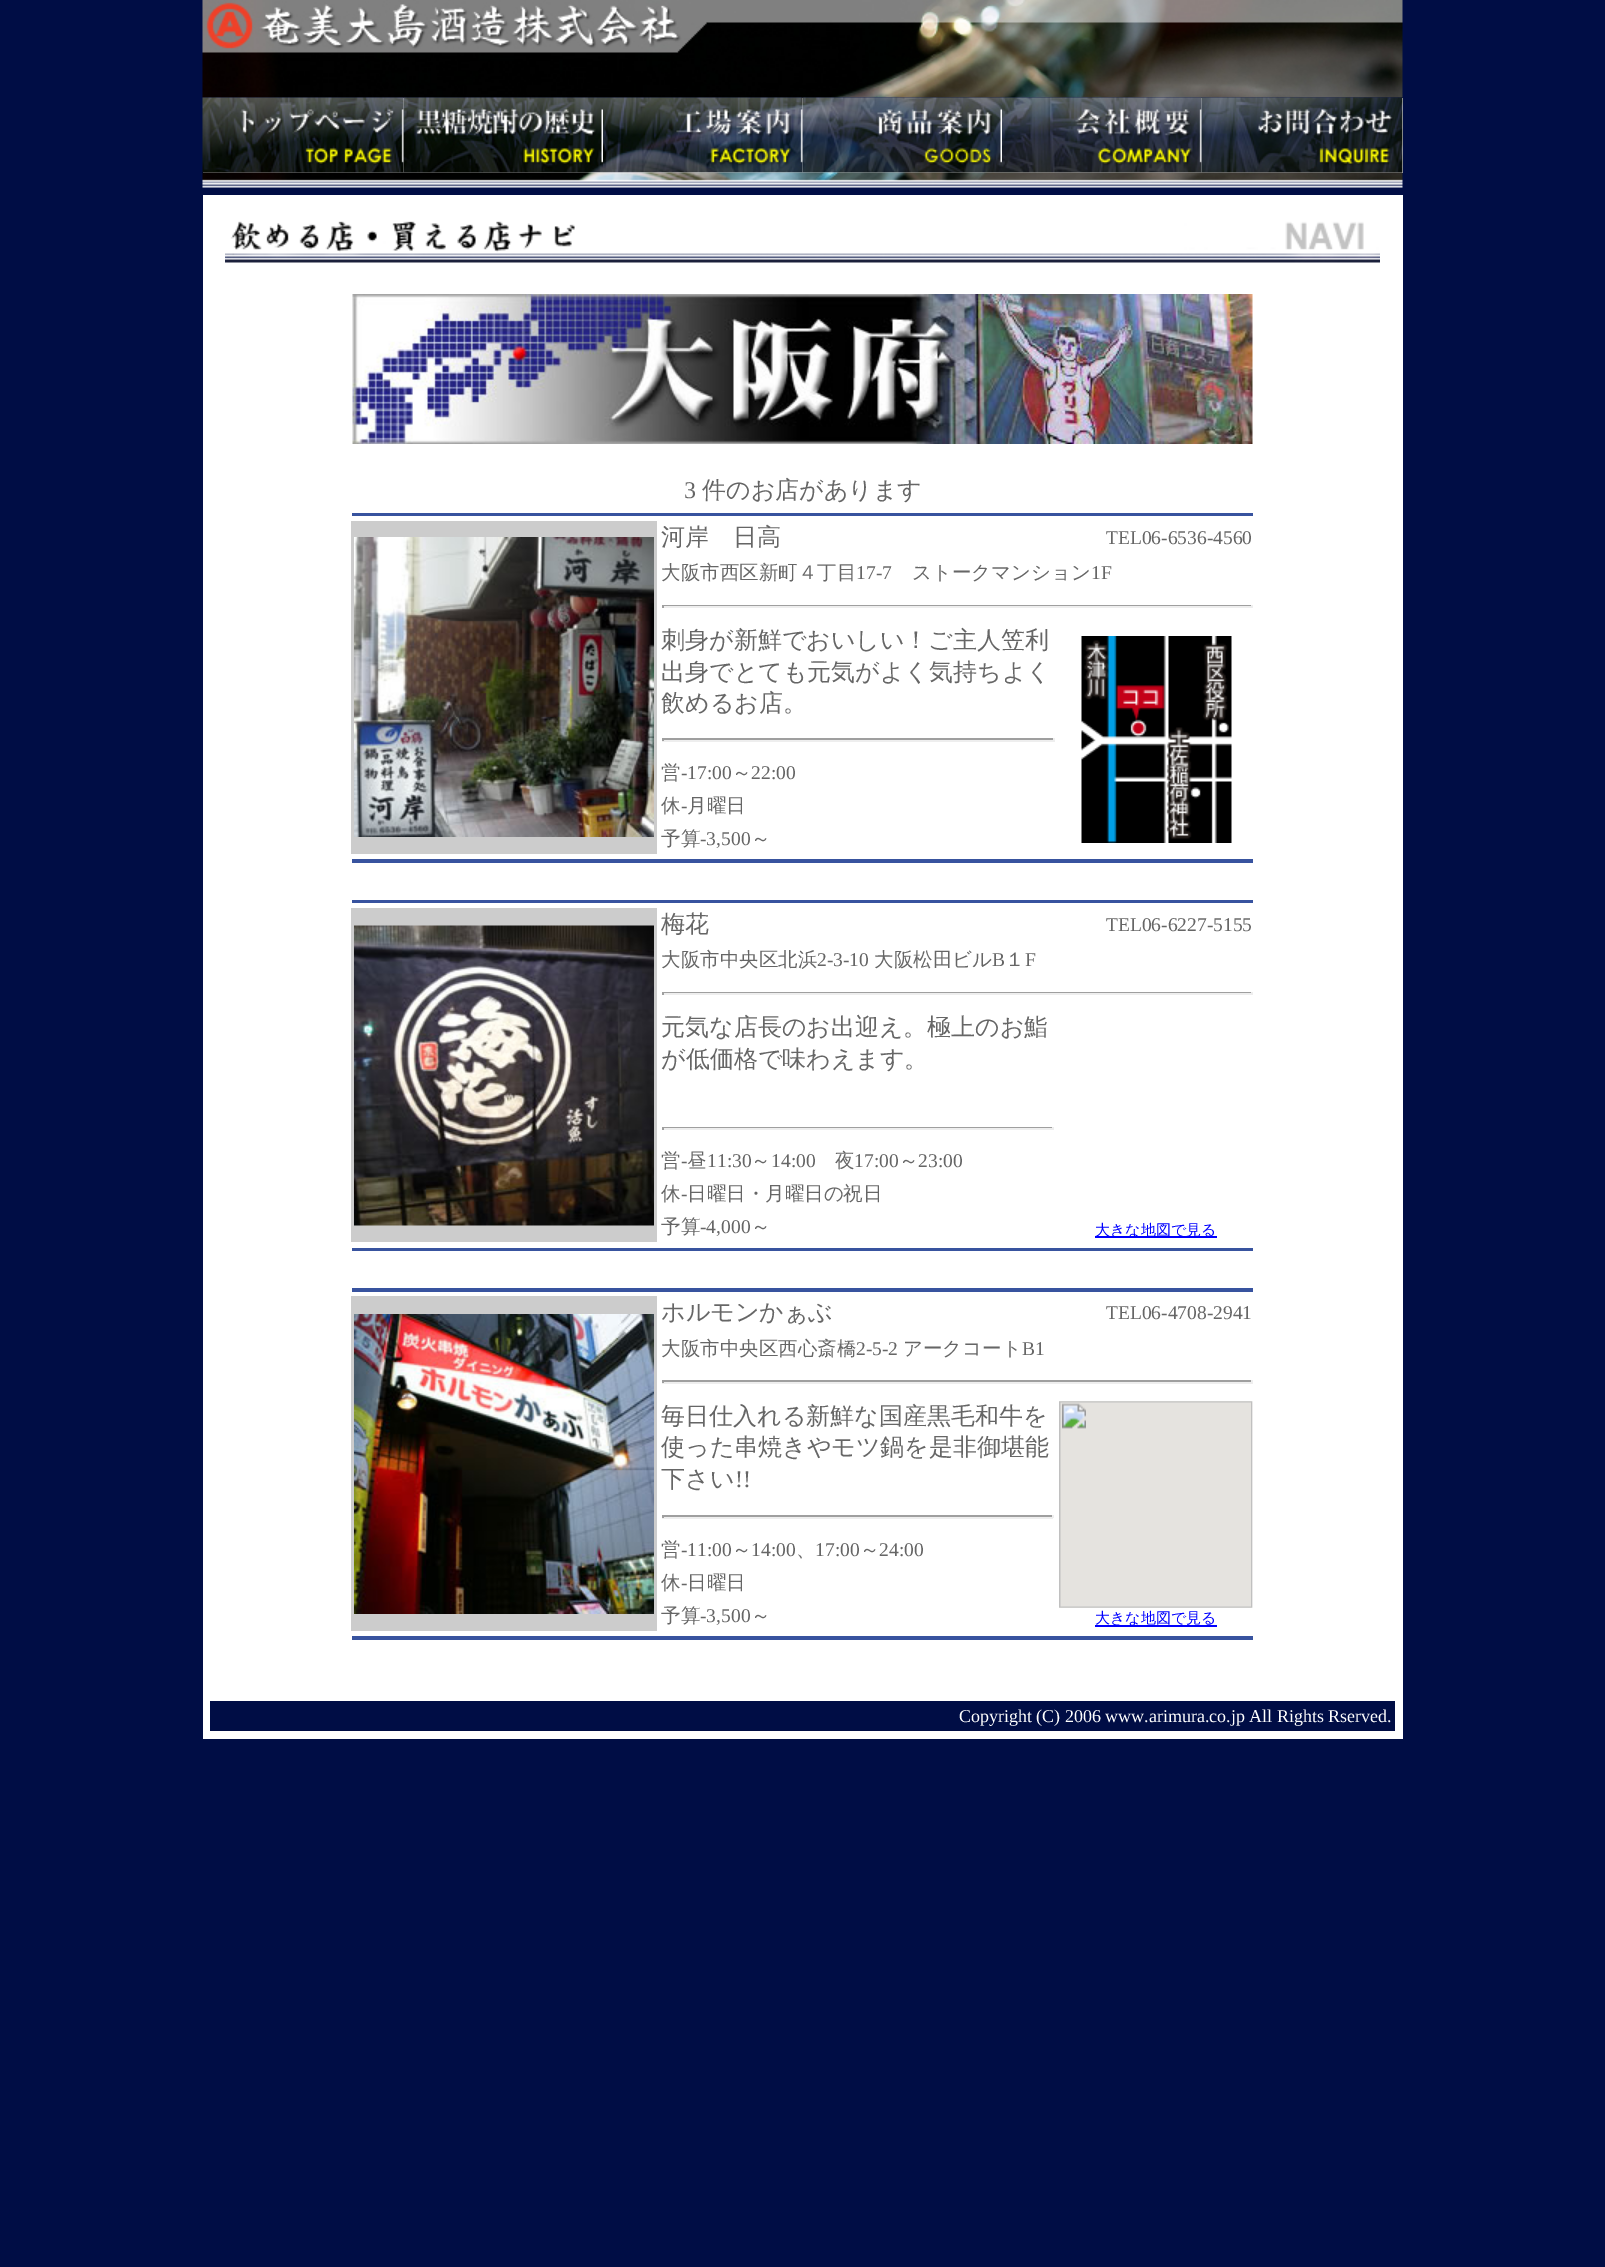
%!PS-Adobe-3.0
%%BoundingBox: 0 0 1605 2267
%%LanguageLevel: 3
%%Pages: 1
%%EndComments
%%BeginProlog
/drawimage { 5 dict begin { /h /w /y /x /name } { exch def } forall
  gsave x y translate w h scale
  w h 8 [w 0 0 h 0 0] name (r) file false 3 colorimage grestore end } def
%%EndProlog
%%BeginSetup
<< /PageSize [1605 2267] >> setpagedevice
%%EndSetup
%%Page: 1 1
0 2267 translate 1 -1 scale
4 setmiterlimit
0 0.051 0.271 setrgbcolor
0 0 1605 2267 rectfill
(images/1.raw) 202 0 1201 98 drawimage
1 setgray
203 98 1200 75 rectfill
(images/2.raw) 202 97 202 76 drawimage
(images/3.raw) 403 97 200 76 drawimage
(images/4.raw) 603 97 200 76 drawimage
(images/5.raw) 802 97 200 76 drawimage
(images/6.raw) 1002 97 200 76 drawimage
(images/7.raw) 1201 97 202 76 drawimage
(images/8.raw) 202 172 1201 16 drawimage
203 195 1200 1544 rectfill
(images/9.raw) 225 221 1155 42 drawimage
(images/10.raw) 352 294 901 150 drawimage
0.22 0.325 0.624 setrgbcolor
352 513 901 3 rectfill
0.8 setgray
351 521 306 333 rectfill
(images/11.raw) 354 537 300 300 drawimage
0.624 setgray
662 605 591 1 rectfill
0.933 setgray
1251 605 2 3 rectfill
662 606 591 2 rectfill
0.624 setgray
662 605 2 3 rectfill
(images/12.raw) 1081 636 151 207 drawimage
662 738 393 2 rectfill
0.933 setgray
1053 738 2 3 rectfill
662 740 393 2 rectfill
0.624 setgray
662 738 2 3 rectfill
0.22 0.325 0.624 setrgbcolor
352 859 901 4 rectfill
352 900 901 3 rectfill
0.8 setgray
351 908 306 334 rectfill
(images/13.raw) 354 925 300 301 drawimage
0.624 setgray
662 992 591 1 rectfill
0.933 setgray
1251 992 2 3 rectfill
662 993 591 2 rectfill
0.624 setgray
662 992 2 3 rectfill
0 0 1 setrgbcolor
1095 1236 122 2 rectfill
0.624 setgray
662 1127 391 1 rectfill
0.933 setgray
1052 1127 2 3 rectfill
662 1128 391 2 rectfill
0.624 setgray
662 1127 2 3 rectfill
0.22 0.325 0.624 setrgbcolor
352 1248 901 3 rectfill
352 1288 901 4 rectfill
0.8 setgray
351 1296 306 335 rectfill
(images/14.raw) 354 1314 300 300 drawimage
0.624 setgray
662 1380 591 2 rectfill
0.933 setgray
1251 1380 2 3 rectfill
662 1382 591 2 rectfill
0.624 setgray
662 1380 2 3 rectfill
(images/15.raw) 1059 1401 194 207 drawimage
0 0 1 setrgbcolor
1095 1625 122 2 rectfill
0.624 setgray
662 1515 391 2 rectfill
0.933 setgray
1052 1515 2 3 rectfill
662 1517 391 2 rectfill
0.624 setgray
662 1515 2 3 rectfill
0.22 0.325 0.624 setrgbcolor
352 1636 901 4 rectfill
0 0.051 0.271 setrgbcolor
210 1701 1185 30 rectfill
/LiberationSerif-Regular [24 0 0 -24 0 0] selectfont
0.4 setgray
684 498 moveto (3) show
/WenQuanYiZenHei-Medium [24 0 0 -24 0 0] selectfont
702 498 moveto (件のお店があります) show
661 545 moveto (河岸　日高) show
/LiberationSerif-Regular [19.5 0 0 -19.5 0 0] selectfont
1106 544 moveto (TEL06-6536-4560) show
/WenQuanYiZenHei-Medium [19.5 0 0 -19.5 0 0] selectfont
661 579 moveto (大阪市西区新町４丁目) show
/LiberationSerif-Regular [19.5 0 0 -19.5 0 0] selectfont
856 579 moveto (17-7) show
/WenQuanYiZenHei-Medium [19.5 0 0 -19.5 0 0] selectfont
912 579 moveto (ストークマンション) show
/LiberationSerif-Regular [19.5 0 0 -19.5 0 0] selectfont
1091 579 moveto (1F) show
/WenQuanYiZenHei-Medium [24 0 0 -24 0 0] selectfont
661 648 moveto (刺身が新鮮でおいしい！ご主人笠利) show
661 680 moveto (出身でとても元気がよく気持ちよく) show
661 711 moveto (飲めるお店。) show
/WenQuanYiZenHei-Medium [19.5 0 0 -19.5 0 0] selectfont
661 779 moveto (営) show
/LiberationSerif-Regular [19.5 0 0 -19.5 0 0] selectfont
681 779 moveto (-17:00) show
/WenQuanYiZenHei-Medium [19.5 0 0 -19.5 0 0] selectfont
732 779 moveto (～) show
/LiberationSerif-Regular [19.5 0 0 -19.5 0 0] selectfont
751 779 moveto (22:00) show
/WenQuanYiZenHei-Medium [19.5 0 0 -19.5 0 0] selectfont
661 812 moveto (休) show
/LiberationSerif-Regular [19.5 0 0 -19.5 0 0] selectfont
681 812 moveto (-) show
/WenQuanYiZenHei-Medium [19.5 0 0 -19.5 0 0] selectfont
687 812 moveto (月曜日) show
661 845 moveto (予算) show
/LiberationSerif-Regular [19.5 0 0 -19.5 0 0] selectfont
700 845 moveto (-3,500) show
/WenQuanYiZenHei-Medium [19.5 0 0 -19.5 0 0] selectfont
751 845 moveto (～) show
/WenQuanYiZenHei-Medium [24 0 0 -24 0 0] selectfont
661 932 moveto (梅花) show
/LiberationSerif-Regular [19.5 0 0 -19.5 0 0] selectfont
1106 931 moveto (TEL06-6227-5155) show
/WenQuanYiZenHei-Medium [19.5 0 0 -19.5 0 0] selectfont
661 966 moveto (大阪市中央区北浜) show
/LiberationSerif-Regular [19.5 0 0 -19.5 0 0] selectfont
817 966 moveto (2-3-10) show
/WenQuanYiZenHei-Medium [19.5 0 0 -19.5 0 0] selectfont
874 966 moveto (大阪松田ビル) show
/LiberationSerif-Regular [19.5 0 0 -19.5 0 0] selectfont
992 966 moveto (B) show
/WenQuanYiZenHei-Medium [19.5 0 0 -19.5 0 0] selectfont
1005 966 moveto (１) show
/LiberationSerif-Regular [19.5 0 0 -19.5 0 0] selectfont
1025 966 moveto (F) show
/WenQuanYiZenHei-Medium [24 0 0 -24 0 0] selectfont
661 1035 moveto (元気な店長のお出迎え。極上のお鮨) show
661 1067 moveto (が低価格で味わえます。) show
/WenQuanYiZenHei-Medium [15 0 0 -15 0 0] selectfont
0 0 1 setrgbcolor
1095 1235 moveto (大きな地図で見る) show
/WenQuanYiZenHei-Medium [19.5 0 0 -19.5 0 0] selectfont
0.4 setgray
661 1167 moveto (営) show
/LiberationSerif-Regular [19.5 0 0 -19.5 0 0] selectfont
681 1167 moveto (-) show
/WenQuanYiZenHei-Medium [19.5 0 0 -19.5 0 0] selectfont
687 1167 moveto (昼) show
/LiberationSerif-Regular [19.5 0 0 -19.5 0 0] selectfont
707 1167 moveto (11:30) show
/WenQuanYiZenHei-Medium [19.5 0 0 -19.5 0 0] selectfont
751 1167 moveto (～) show
/LiberationSerif-Regular [19.5 0 0 -19.5 0 0] selectfont
771 1167 moveto (14:00) show
/WenQuanYiZenHei-Medium [19.5 0 0 -19.5 0 0] selectfont
835 1167 moveto (夜) show
/LiberationSerif-Regular [19.5 0 0 -19.5 0 0] selectfont
854 1167 moveto (17:00) show
/WenQuanYiZenHei-Medium [19.5 0 0 -19.5 0 0] selectfont
899 1167 moveto (～) show
/LiberationSerif-Regular [19.5 0 0 -19.5 0 0] selectfont
918 1167 moveto (23:00) show
/WenQuanYiZenHei-Medium [19.5 0 0 -19.5 0 0] selectfont
661 1200 moveto (休) show
/LiberationSerif-Regular [19.5 0 0 -19.5 0 0] selectfont
681 1200 moveto (-) show
/WenQuanYiZenHei-Medium [19.5 0 0 -19.5 0 0] selectfont
687 1200 moveto (日曜日・月曜日の祝日) show
661 1233 moveto (予算) show
/LiberationSerif-Regular [19.5 0 0 -19.5 0 0] selectfont
700 1233 moveto (-4,000) show
/WenQuanYiZenHei-Medium [19.5 0 0 -19.5 0 0] selectfont
751 1233 moveto (～) show
/WenQuanYiZenHei-Medium [24 0 0 -24 0 0] selectfont
661 1320 moveto (ホルモンかぁぶ) show
/LiberationSerif-Regular [19.5 0 0 -19.5 0 0] selectfont
1106 1319 moveto (TEL06-4708-2941) show
/WenQuanYiZenHei-Medium [19.5 0 0 -19.5 0 0] selectfont
661 1355 moveto (大阪市中央区西心斎橋) show
/LiberationSerif-Regular [19.5 0 0 -19.5 0 0] selectfont
856 1355 moveto (2-5-2) show
/WenQuanYiZenHei-Medium [19.5 0 0 -19.5 0 0] selectfont
903 1355 moveto (アークコート) show
/LiberationSerif-Regular [19.5 0 0 -19.5 0 0] selectfont
1022 1355 moveto (B1) show
/WenQuanYiZenHei-Medium [24 0 0 -24 0 0] selectfont
661 1424 moveto (毎日仕入れる新鮮な国産黒毛和牛を) show
661 1455 moveto (使った串焼きやモツ鍋を是非御堪能) show
661 1487 moveto (下さい) show
/LiberationSerif-Regular [24 0 0 -24 0 0] selectfont
735 1487 moveto (!!) show
/WenQuanYiZenHei-Medium [15 0 0 -15 0 0] selectfont
0 0 1 setrgbcolor
1095 1623 moveto (大きな地図で見る) show
/WenQuanYiZenHei-Medium [19.5 0 0 -19.5 0 0] selectfont
0.4 setgray
661 1556 moveto (営) show
/LiberationSerif-Regular [19.5 0 0 -19.5 0 0] selectfont
681 1556 moveto (-11:00) show
/WenQuanYiZenHei-Medium [19.5 0 0 -19.5 0 0] selectfont
732 1556 moveto (～) show
/LiberationSerif-Regular [19.5 0 0 -19.5 0 0] selectfont
751 1556 moveto (14:00) show
815 1556 moveto (17:00) show
/WenQuanYiZenHei-Medium [19.5 0 0 -19.5 0 0] selectfont
860 1556 moveto (～) show
/LiberationSerif-Regular [19.5 0 0 -19.5 0 0] selectfont
879 1556 moveto (24:00) show
/WenQuanYiZenHei-Medium [19.5 0 0 -19.5 0 0] selectfont
796 1556 moveto (、) show
661 1589 moveto (休) show
/LiberationSerif-Regular [19.5 0 0 -19.5 0 0] selectfont
681 1589 moveto (-) show
/WenQuanYiZenHei-Medium [19.5 0 0 -19.5 0 0] selectfont
687 1589 moveto (日曜日) show
661 1622 moveto (予算) show
/LiberationSerif-Regular [19.5 0 0 -19.5 0 0] selectfont
700 1622 moveto (-3,500) show
/WenQuanYiZenHei-Medium [19.5 0 0 -19.5 0 0] selectfont
751 1622 moveto (～) show
/LiberationSerif-Regular [18 0 0 -18 0 0] selectfont
1 setgray
959 1722 moveto (Copyright \(C\) 2006 www.arimura.co.jp All Rights Rserved.) show
showpage
%%EOF
